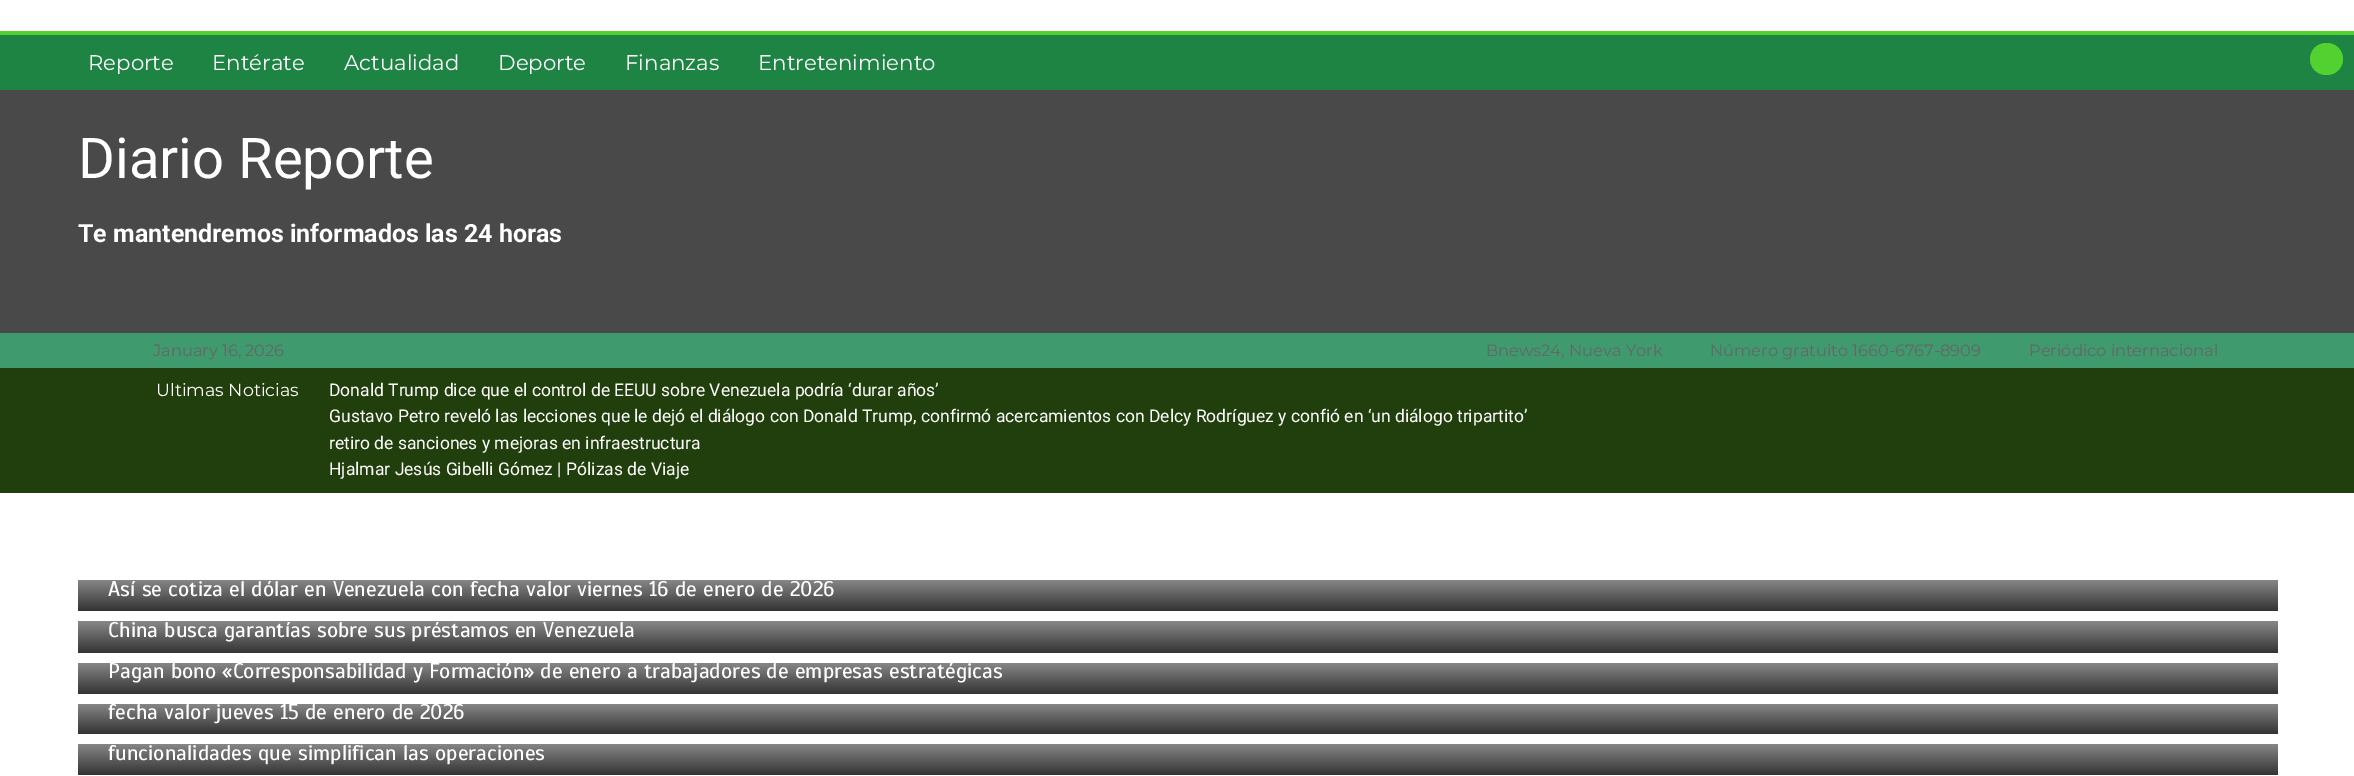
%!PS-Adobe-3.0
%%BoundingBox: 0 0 2354 776
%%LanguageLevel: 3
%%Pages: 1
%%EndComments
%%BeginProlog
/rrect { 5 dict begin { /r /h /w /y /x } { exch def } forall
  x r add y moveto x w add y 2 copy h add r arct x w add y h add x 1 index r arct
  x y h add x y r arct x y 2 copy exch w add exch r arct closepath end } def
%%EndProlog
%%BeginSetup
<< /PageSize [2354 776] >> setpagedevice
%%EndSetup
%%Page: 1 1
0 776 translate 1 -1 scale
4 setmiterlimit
1 setgray
0 0 2354 776 rectfill
0.118 0.518 0.263 setrgbcolor
0 35 2354 55 rectfill
0.322 0.82 0.188 setrgbcolor
0 31 2354 4 rectfill
2310 43 33 32 16 rrect fill
0.286 setgray
0 90 2354 243 rectfill
0.247 0.608 0.427 setrgbcolor
0 333 2354 35 rectfill
0.129 0.247 0.047 setrgbcolor
0 368 2354 125 rectfill
gsave newpath 78 580 moveto 2278 580 lineto 2278 611 lineto 78 611 lineto closepath clip newpath
<< /ShadingType 2 /ColorSpace /DeviceRGB /Coords [1178 536 1178 611] /Extend [true true] /Function << /FunctionType 2 /Domain [0 1] /C0 [1 1 1] /C1 [0.2 0.2 0.2] /N 1 >> >> shfill grestore
gsave newpath 78 621 moveto 2278 621 lineto 2278 653 lineto 78 653 lineto closepath clip newpath
<< /ShadingType 2 /ColorSpace /DeviceRGB /Coords [1178 577 1178 653] /Extend [true true] /Function << /FunctionType 2 /Domain [0 1] /C0 [1 1 1] /C1 [0.2 0.2 0.2] /N 1 >> >> shfill grestore
gsave newpath 78 663 moveto 2278 663 lineto 2278 694 lineto 78 694 lineto closepath clip newpath
<< /ShadingType 2 /ColorSpace /DeviceRGB /Coords [1178 619 1178 694] /Extend [true true] /Function << /FunctionType 2 /Domain [0 1] /C0 [1 1 1] /C1 [0.2 0.2 0.2] /N 1 >> >> shfill grestore
gsave newpath 78 704 moveto 2278 704 lineto 2278 734 lineto 78 734 lineto closepath clip newpath
<< /ShadingType 2 /ColorSpace /DeviceRGB /Coords [1178 660 1178 734] /Extend [true true] /Function << /FunctionType 2 /Domain [0 1] /C0 [1 1 1] /C1 [0.2 0.2 0.2] /N 1 >> >> shfill grestore
gsave newpath 78 744 moveto 2278 744 lineto 2278 775 lineto 78 775 lineto closepath clip newpath
<< /ShadingType 2 /ColorSpace /DeviceRGB /Coords [1178 700 1178 775] /Extend [true true] /Function << /FunctionType 2 /Domain [0 1] /C0 [1 1 1] /C1 [0.2 0.2 0.2] /N 1 >> >> shfill grestore
/Montserrat-Regular [21.25 0 0 -21.25 0 0] selectfont
1 setgray
88 70 moveto (Reporte) show
212 70 moveto (Entérate) show
344 70 moveto (Actualidad) show
498 70 moveto (Deporte) show
625 70 moveto (Finanzas) show
758 70 moveto (Entretenimiento) show
/Roboto-Regular [56.25 0 0 -56.25 0 0] selectfont
78 178 moveto (Diario Reporte) show
/Roboto-Bold [25 0 0 -25 0 0] selectfont
78 242 moveto (Te mantendremos informados las 24 horas) show
/Montserrat-Regular [16.25 0 0 -16.25 0 0] selectfont
0.4 setgray
153 356 moveto (January 16, 2026) show
1486 356 moveto (Bnews24, Nueva York) show
1710 356 moveto (Número gratuito 1660-6767-8909) show
2029 356 moveto (Periódico internacional) show
/Montserrat-Regular [17.5 0 0 -17.5 0 0] selectfont
1 setgray
156 396 moveto (Ultimas Noticias) show
/Roboto-Regular [17.5 0 0 -17.5 0 0] selectfont
329 396 moveto (Donald Trump dice que el control de EEUU sobre Venezuela podría ‘durar años’) show
329 422 moveto (Gustavo Petro reveló las lecciones que le dejó el diálogo con Donald Trump, confirmó acercamientos con Delcy Rodríguez y confió en ‘un diálogo tripartito’) show
329 449 moveto (retiro de sanciones y mejoras en infraestructura) show
329 475 moveto (Hjalmar Jesús Gibelli Gómez | Pólizas de Viaje) show
/Scada-Regular [21.25 0 0 -21.25 0 0] selectfont
108 596 moveto (Así se cotiza el dólar en Venezuela con fecha valor viernes 16 de enero de 2026) show
108 637 moveto (China busca garantías sobre sus préstamos en Venezuela) show
108 678 moveto (Pagan bono «Corresponsabilidad y Formación» de enero a trabajadores de empresas estratégicas) show
108 719 moveto (fecha valor jueves 15 de enero de 2026) show
108 760 moveto (funcionalidades que simplifican las operaciones) show
showpage
%%EOF
